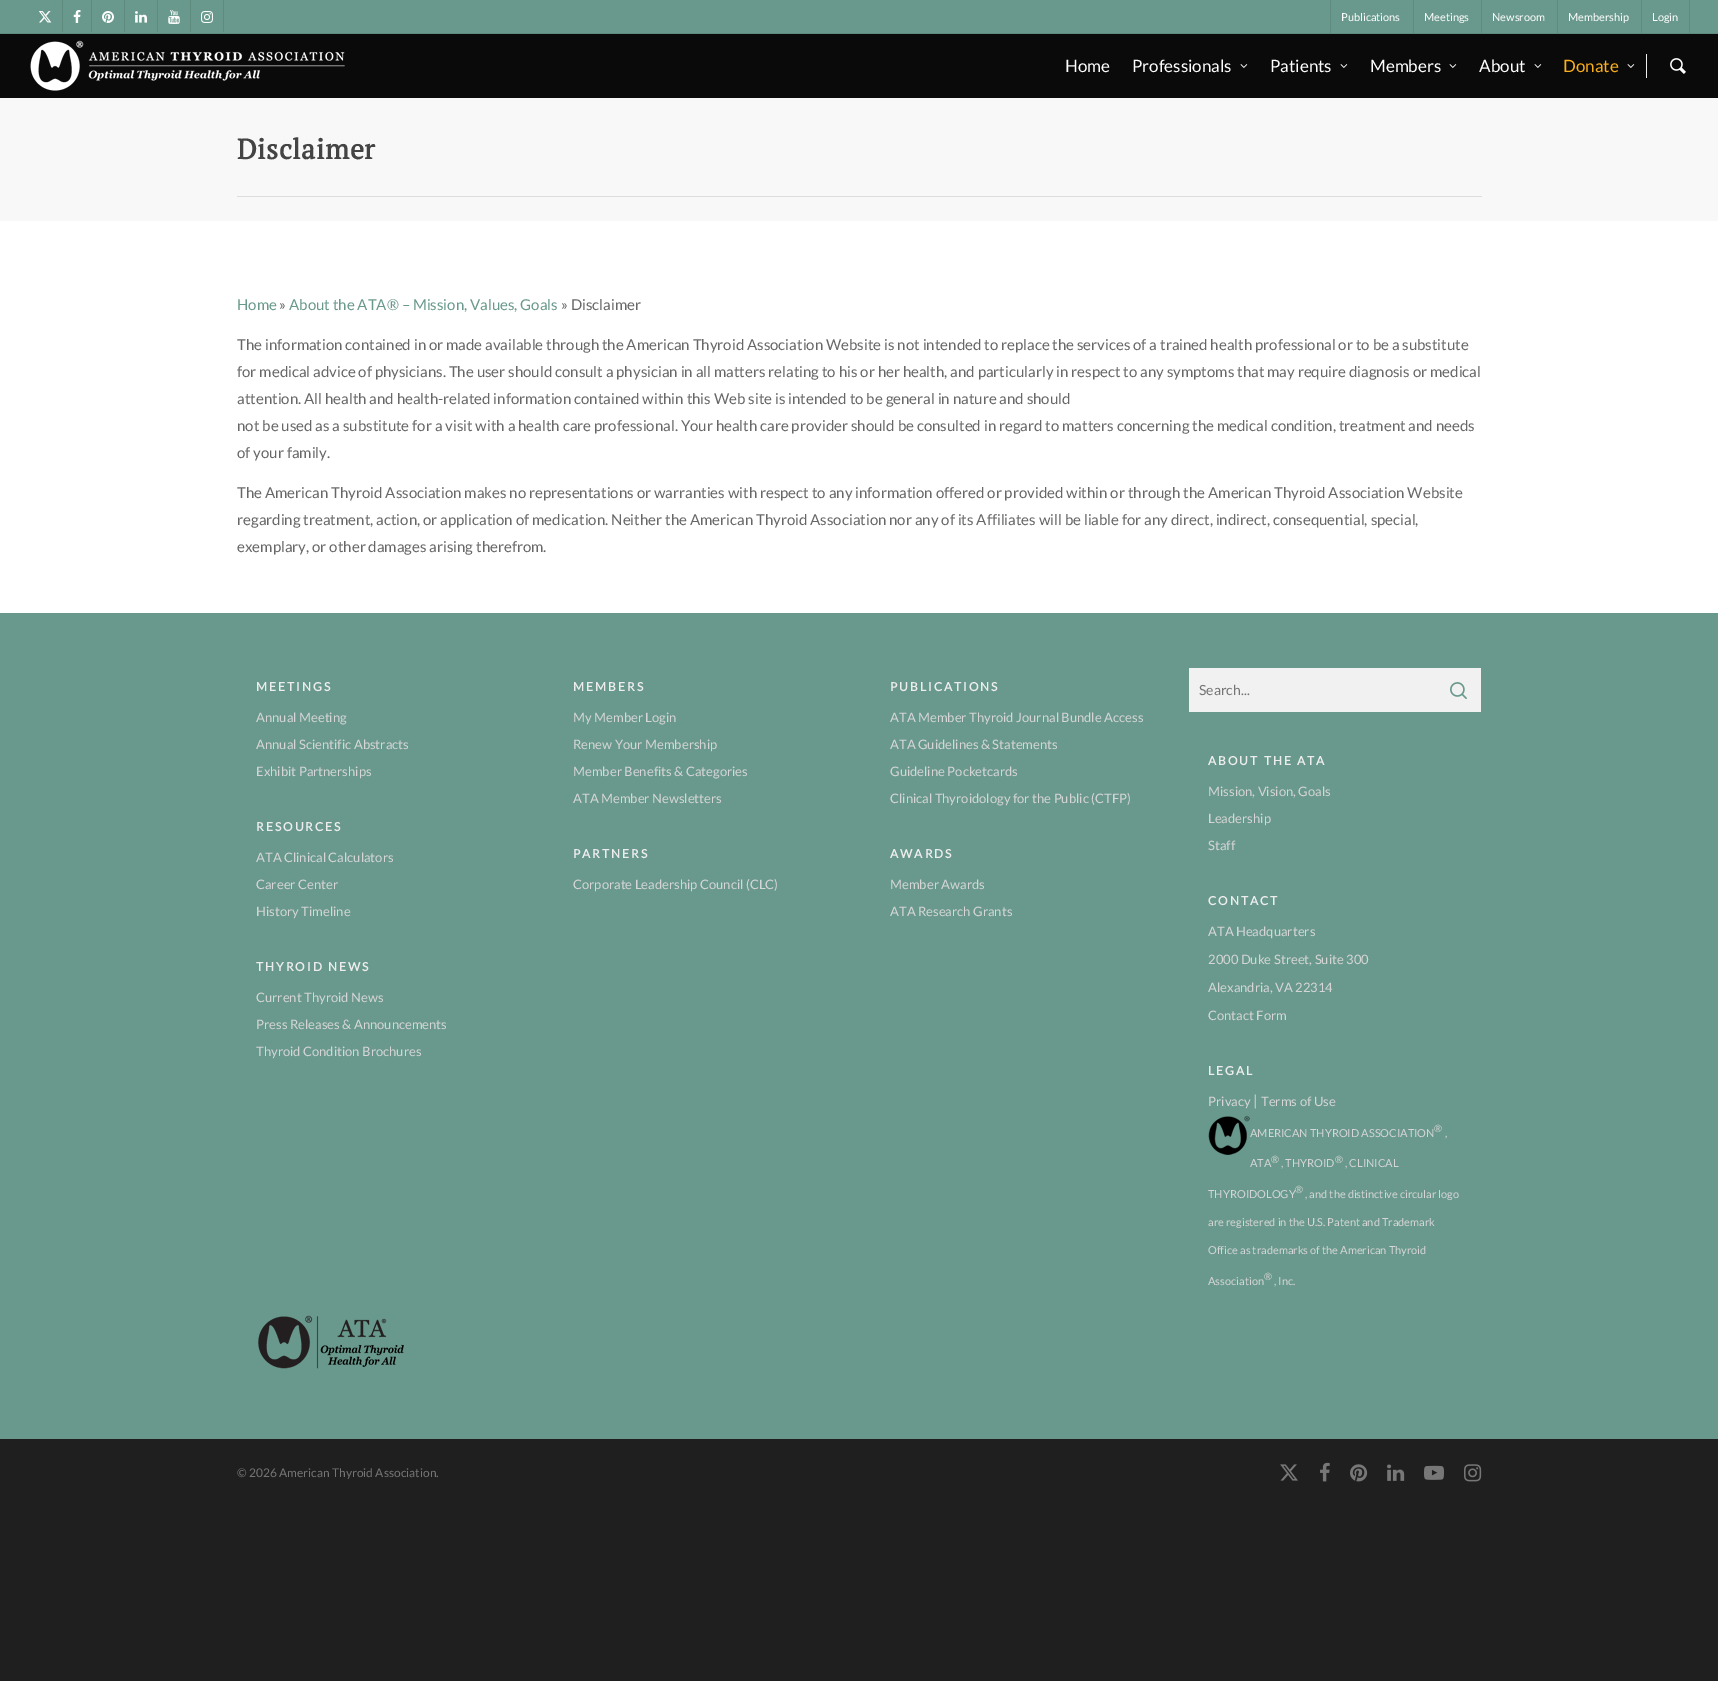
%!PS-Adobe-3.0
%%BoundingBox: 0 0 1718 1681
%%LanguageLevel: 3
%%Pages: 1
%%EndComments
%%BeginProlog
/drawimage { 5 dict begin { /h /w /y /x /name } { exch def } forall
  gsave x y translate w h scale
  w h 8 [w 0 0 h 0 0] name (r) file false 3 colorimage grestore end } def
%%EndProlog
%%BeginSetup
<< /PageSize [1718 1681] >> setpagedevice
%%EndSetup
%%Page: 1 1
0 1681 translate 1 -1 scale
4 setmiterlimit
0.122 setgray
0 0 1718 1681 rectfill
0.412 0.6 0.549 setrgbcolor
0 0 1718 33 rectfill
0.373 0.541 0.494 setrgbcolor
0 33 1718 1 rectfill
(images/1.raw) 38 11 14 12 drawimage
62 0 1 32 rectfill
(images/2.raw) 73 10 8 13 drawimage
91 0 1 32 rectfill
(images/3.raw) 102 11 12 12 drawimage
124 0 1 32 rectfill
(images/4.raw) 135 11 12 12 drawimage
157 0 1 32 rectfill
(images/5.raw) 168 10 12 14 drawimage
223 0 1 32 rectfill
190 0 1 32 rectfill
(images/6.raw) 201 11 12 12 drawimage
1330 0 1 33 rectfill
1413 0 1 33 rectfill
1481 0 1 33 rectfill
1557 0 1 33 rectfill
1689 0 1 33 rectfill
1641 0 1 33 rectfill
0.039 setgray
0 34 1718 64 rectfill
(images/7.raw) 30 40 315 51 drawimage
(images/8.raw) 1240 64 8 4 drawimage
(images/8.raw) 1340 64 8 4 drawimage
(images/8.raw) 1449 64 8 4 drawimage
(images/8.raw) 1534 64 8 4 drawimage
(images/8.raw) 1627 64 8 4 drawimage
0.933 setgray
1646 54 1 24 rectfill
(images/9.raw) 1670 58 16 16 drawimage
0.973 setgray
0 98 1718 123 rectfill
0.867 setgray
237 196 1245 1 rectfill
1 setgray
0 221 1718 392 rectfill
0.412 0.6 0.549 setrgbcolor
0 613 1718 826 rectfill
(images/10.raw) 258 1315 146 54 drawimage
0.945 setgray
1189 668 292 44 rectfill
(images/11.raw) 1450 682 17 17 drawimage
(images/12.raw) 1208 1115 42 40 drawimage
(images/13.raw) 1280 1464 18 17 drawimage
(images/14.raw) 1320 1462 10 20 drawimage
(images/15.raw) 1350 1464 18 18 drawimage
(images/16.raw) 1387 1464 18 17 drawimage
(images/17.raw) 1424 1465 20 15 drawimage
(images/18.raw) 1464 1464 18 18 drawimage
/Lato-Regular [11 0 0 -11 0 0] selectfont
1 setgray
1341 21 moveto (Publications) show
1424 21 moveto (Meetings) show
1492 21 moveto (Newsroom) show
1568 21 moveto (Membership) show
1652 21 moveto (Login) show
/Lato-Regular [17 0 0 -17 0 0] selectfont
1065 72 moveto (Home) show
1132 72 moveto (Professionals) show
1270 72 moveto (Patients) show
1370 72 moveto (Members) show
1479 72 moveto (About) show
0.984 0.686 0.11 setrgbcolor
1563 72 moveto (Donate) show
/PTSerif-Bold [28 0 0 -28 0 0] selectfont
0.267 setgray
237 159 moveto 0.5 0 (Disclaimer) ashow
/Lato-Regular [15 0 0 -15 0 0] selectfont
0.412 0.6 0.549 setrgbcolor
237 310 moveto (Home) show
0.404 setgray
279 310 moveto (») show
0.412 0.6 0.549 setrgbcolor
289 310 moveto (About the ATA® – Mission, Values, Goals) show
0.404 setgray
561 310 moveto (» Disclaimer) show
237 350 moveto (The information contained in or made available through the American Thyroid Association Website is not intended to replace the services of a trained health professional or to be a substitute) show
237 377 moveto (for medical advice of physicians. The user should consult a physician in all matters relating to his or her health, and particularly in respect to any symptoms that may require diagnosis or medical) show
237 404 moveto (attention. All health and health-related information contained within this Web site is intended to be general in nature and should) show
237 431 moveto (not be used as a substitute for a visit with a health care professional. Your health care provider should be consulted in regard to matters concerning the medical condition, treatment and needs) show
237 458 moveto (of your family.) show
237 498 moveto (The American Thyroid Association makes no representations or warranties with respect to any information offered or provided within or through the American Thyroid Association Website) show
237 525 moveto (regarding treatment, action, or application of medication. Neither the American Thyroid Association nor any of its Affiliates will be liable for any direct, indirect, consequential, special,) show
237 552 moveto (exemplary, or other damages arising therefrom.) show
/Lato-Bold [12 0 0 -12 0 0] selectfont
0.929 setgray
256 691 moveto 2 0 (MEETINGS) ashow
/Lato-Regular [13 0 0 -13 0 0] selectfont
0.839 setgray
256 722 moveto (Annual Meeting) show
256 749 moveto (Annual Scientific Abstracts) show
256 776 moveto (Exhibit Partnerships) show
/Lato-Bold [12 0 0 -12 0 0] selectfont
0.929 setgray
256 831 moveto 2 0 (RESOURCES) ashow
/Lato-Regular [13 0 0 -13 0 0] selectfont
0.839 setgray
256 862 moveto (ATA Clinical Calculators) show
256 889 moveto (Career Center) show
256 916 moveto (History Timeline) show
/Lato-Bold [12 0 0 -12 0 0] selectfont
0.929 setgray
256 971 moveto 2 0 (THYROID NEWS) ashow
/Lato-Regular [13 0 0 -13 0 0] selectfont
0.839 setgray
256 1002 moveto (Current Thyroid News) show
256 1029 moveto (Press Releases & Announcements) show
256 1056 moveto (Thyroid Condition Brochures) show
/Lato-Bold [12 0 0 -12 0 0] selectfont
0.929 setgray
573 691 moveto 2 0 (MEMBERS) ashow
/Lato-Regular [13 0 0 -13 0 0] selectfont
0.839 setgray
573 722 moveto (My Member Login) show
573 749 moveto (Renew Your Membership) show
573 776 moveto (Member Benefits & Categories) show
573 803 moveto (ATA Member Newsletters) show
/Lato-Bold [12 0 0 -12 0 0] selectfont
0.929 setgray
573 858 moveto 2 0 (PARTNERS) ashow
/Lato-Regular [13 0 0 -13 0 0] selectfont
0.839 setgray
573 889 moveto (Corporate Leadership Council \(CLC\)) show
/Lato-Bold [12 0 0 -12 0 0] selectfont
0.929 setgray
890 691 moveto 2 0 (PUBLICATIONS) ashow
/Lato-Regular [13 0 0 -13 0 0] selectfont
0.839 setgray
890 722 moveto (ATA Member Thyroid Journal Bundle Access) show
890 749 moveto (ATA Guidelines & Statements) show
890 776 moveto (Guideline Pocketcards) show
890 803 moveto (Clinical Thyroidology for the Public \(CTFP\)) show
/Lato-Bold [12 0 0 -12 0 0] selectfont
0.929 setgray
890 858 moveto 2 0 (AWARDS) ashow
/Lato-Regular [13 0 0 -13 0 0] selectfont
0.839 setgray
890 889 moveto (Member Awards) show
890 916 moveto (ATA Research Grants) show
/Lato-Regular [14 0 0 -14 0 0] selectfont
0.459 setgray
1199 695 moveto (Search...) show
/Lato-Bold [12 0 0 -12 0 0] selectfont
0.929 setgray
1208 765 moveto 2 0 (ABOUT THE ATA) ashow
/Lato-Regular [13 0 0 -13 0 0] selectfont
0.839 setgray
1208 796 moveto (Mission, Vision, Goals) show
1208 823 moveto (Leadership) show
1208 850 moveto (Staff) show
/Lato-Bold [12 0 0 -12 0 0] selectfont
0.929 setgray
1208 905 moveto 2 0 (CONTACT) ashow
/Lato-Regular [13 0 0 -13 0 0] selectfont
0.839 setgray
1208 936 moveto (ATA Headquarters) show
1208 964 moveto (2000 Duke Street, Suite 300) show
1208 992 moveto (Alexandria, VA 22314) show
1208 1020 moveto (Contact Form) show
/Lato-Bold [12 0 0 -12 0 0] selectfont
0.929 setgray
1208 1075 moveto 2 0 (LEGAL) ashow
/Lato-Regular [13 0 0 -13 0 0] selectfont
0.839 setgray
1208 1106 moveto (Privacy) show
/Lato-Regular [15 0 0 -15 0 0] selectfont
1253 1106 moveto (|) show
/Lato-Regular [13 0 0 -13 0 0] selectfont
1261 1106 moveto (Terms of Use) show
/Lato-Regular [11 0 0 -11 0 0] selectfont
1250 1137 moveto (AMERICAN THYROID ASSOCIATION) show
/Lato-Regular [10 0 0 -10 0 0] selectfont
1434 1132 moveto (®) show
/Lato-Regular [11 0 0 -11 0 0] selectfont
1445 1137 moveto (,) show
1250 1167 moveto (ATA) show
/Lato-Regular [10 0 0 -10 0 0] selectfont
1271 1163 moveto (®) show
/Lato-Regular [11 0 0 -11 0 0] selectfont
1281 1167 moveto (, THYROID) show
/Lato-Regular [10 0 0 -10 0 0] selectfont
1335 1163 moveto (®) show
/Lato-Regular [11 0 0 -11 0 0] selectfont
1345 1167 moveto (, CLINICAL) show
1208 1198 moveto (THYROIDOLOGY) show
/Lato-Regular [10 0 0 -10 0 0] selectfont
1295 1193 moveto (®) show
/Lato-Regular [11 0 0 -11 0 0] selectfont
1305 1198 moveto (, and the distinctive circular logo) show
1208 1226 moveto (are registered in the U.S. Patent and Trademark) show
1208 1254 moveto (Office as trademarks of the American Thyroid) show
1208 1285 moveto (Association) show
/Lato-Regular [10 0 0 -10 0 0] selectfont
1264 1280 moveto (®) show
/Lato-Regular [11 0 0 -11 0 0] selectfont
1274 1285 moveto (, Inc.) show
/Lato-Regular [12 0 0 -12 0 0] selectfont
0.459 setgray
237 1477 moveto (© 2026 American Thyroid Association.) show
showpage
%%EOF
